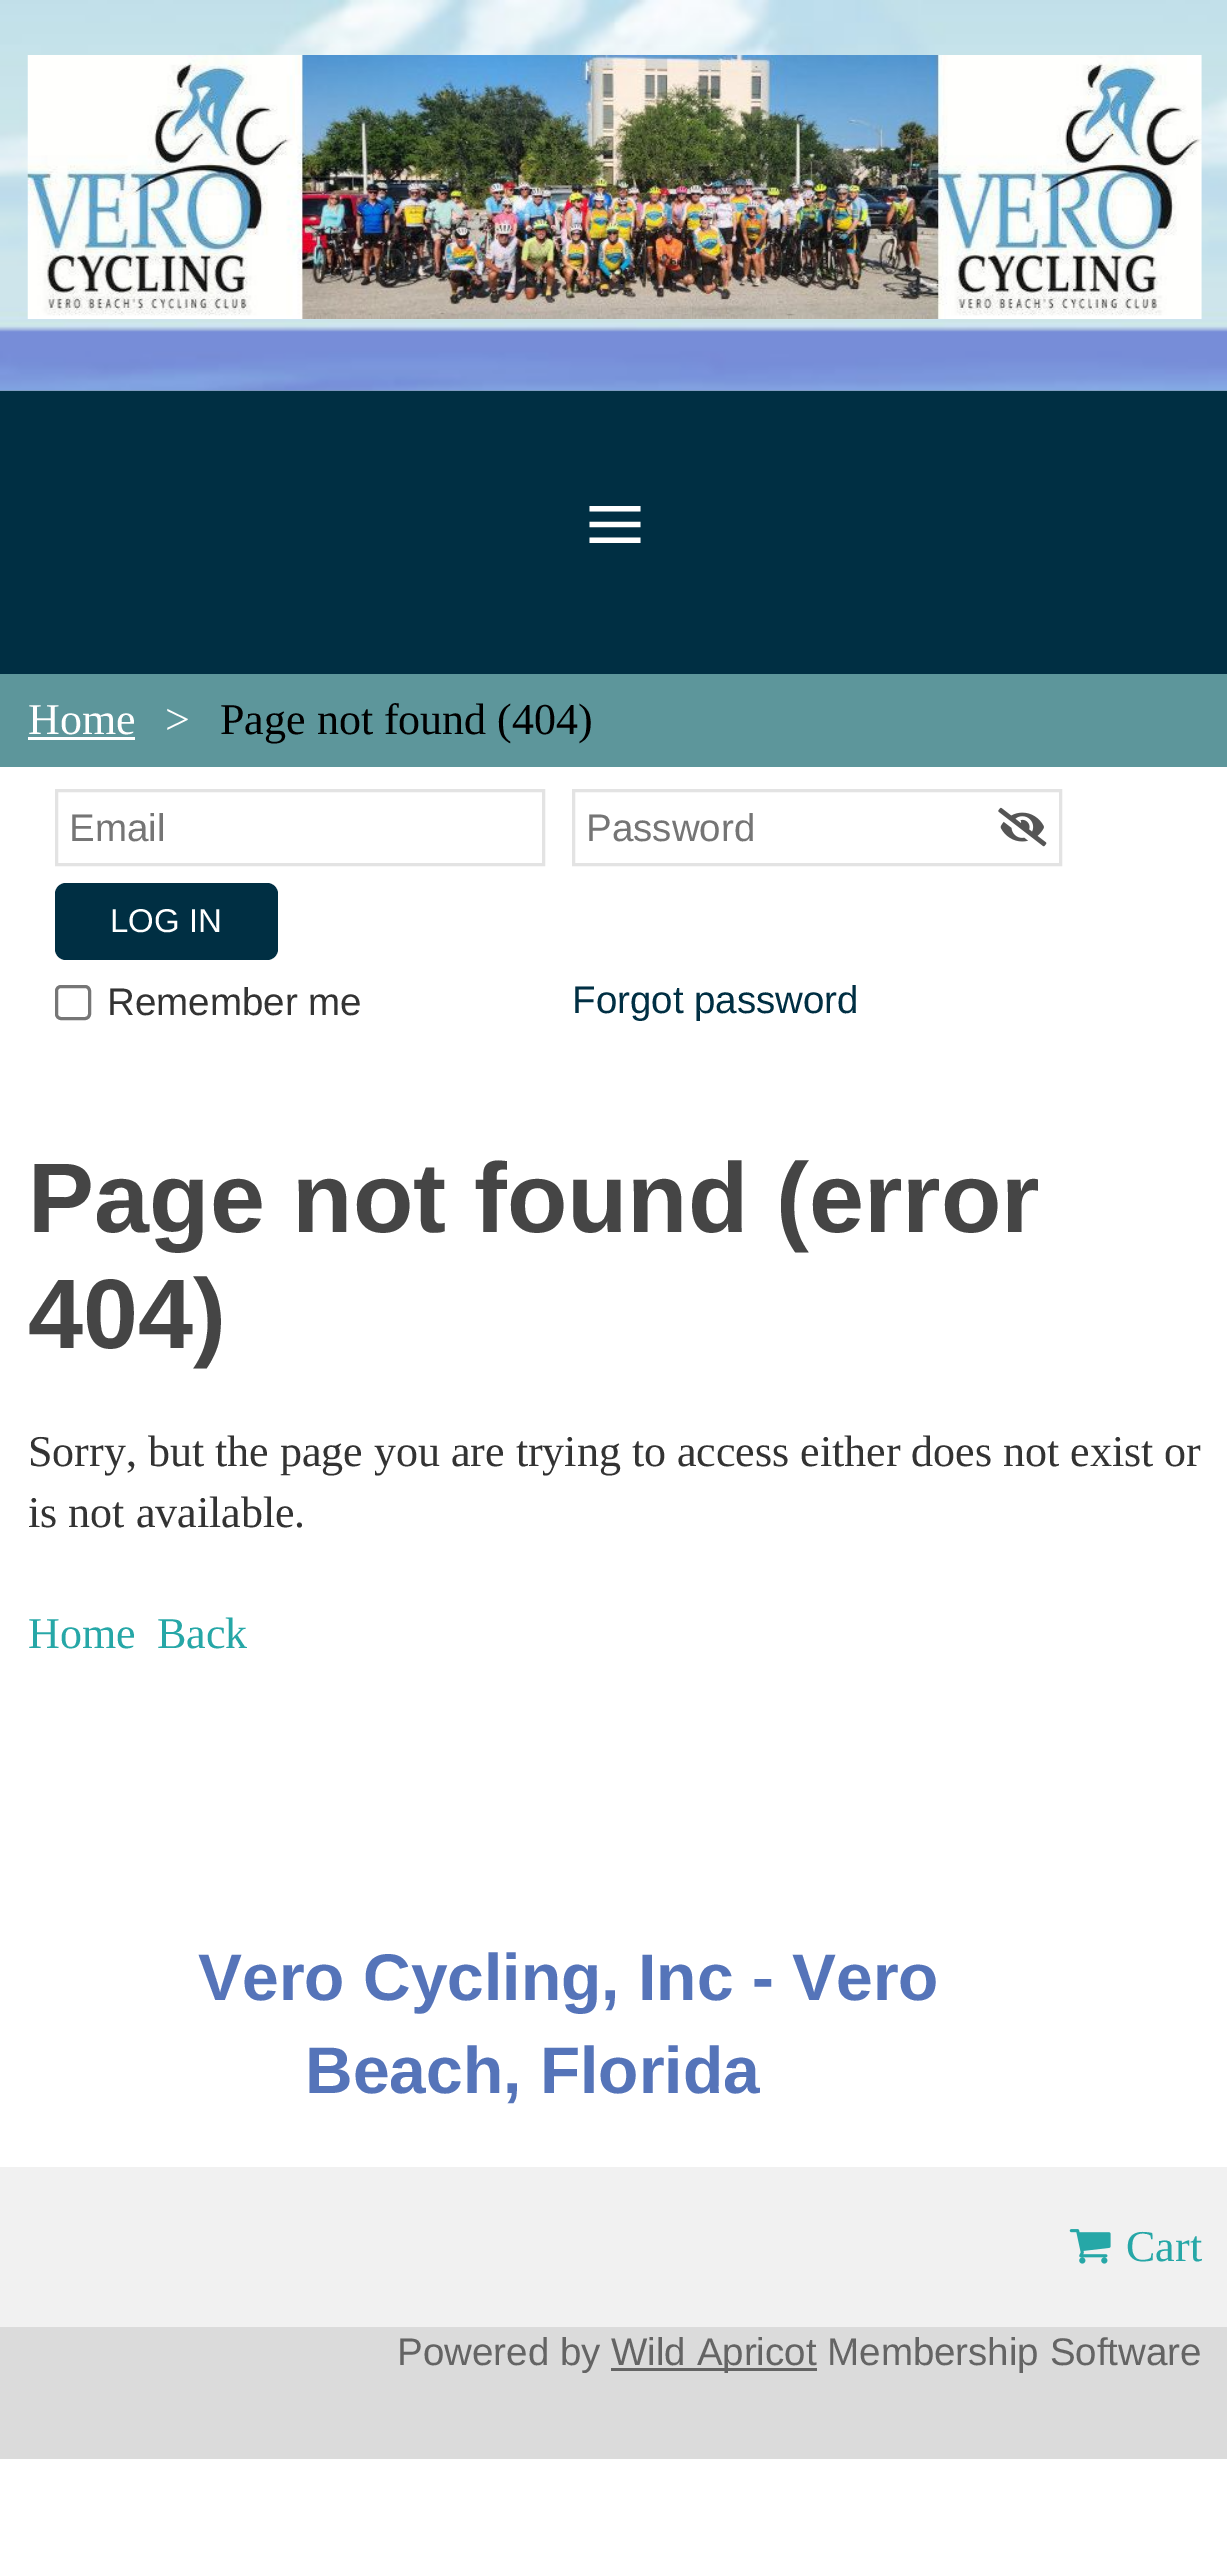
%!PS-Adobe-3.0
%%BoundingBox: 0 0 1227 2553
%%LanguageLevel: 3
%%Pages: 1
%%EndComments
%%BeginProlog
/rrect { 5 dict begin { /r /h /w /y /x } { exch def } forall
  x r add y moveto x w add y 2 copy h add r arct x w add y h add x 1 index r arct
  x y h add x y r arct x y 2 copy exch w add exch r arct closepath end } def
/drawimage { 5 dict begin { /h /w /y /x /name } { exch def } forall
  gsave x y translate w h scale
  w h 8 [w 0 0 h 0 0] name (r) file false 3 colorimage grestore end } def
%%EndProlog
%%BeginSetup
<< /PageSize [1227 2553] >> setpagedevice
%%EndSetup
%%Page: 1 1
0 2553 translate 1 -1 scale
4 setmiterlimit
1 setgray
0 0 1227 2553 rectfill
0.49 0.588 0.639 setrgbcolor
0 390 1227 1 rectfill
(images/1.raw) 0 0 1227 391 drawimage
(images/2.raw) 27 55 1175 264 drawimage
0 0.184 0.263 setrgbcolor
0 391 1227 283 rectfill
0.365 0.588 0.608 setrgbcolor
0 674 1227 93 rectfill
1 setgray
28 737 107 3 rectfill
0.89 setgray
3 setlinewidth
56.5 790.5 487 74 rectstroke
573.5 790.5 487 74 rectstroke
(images/3.raw) 998 807 49 40 drawimage
0 0.184 0.263 setrgbcolor
55 883 223 77 11 rrect fill
0.463 setgray
56.5 986.5 33 32 4.5 rrect stroke
0.945 setgray
0 2167 1227 160 rectfill
(images/4.raw) 1069 2229 42 35 drawimage
0.859 setgray
0 2327 1227 132 rectfill
0.392 setgray
611 2368 206 3 rectfill
/LiberationSerif-Regular [110 0 0 -110 0 0] selectfont
1 setgray
584 561 moveto (≡) show
/LiberationSerif-Regular [44 0 0 -44 0 0] selectfont
28 734 moveto (Home) show
165 734 moveto (>) show
0 setgray
220 734 moveto (Page not found \(404\)) show
/LiberationSans-Regular [38.5 0 0 -38.5 0 0] selectfont
0.459 setgray
69 841 moveto (Email) show
586 841 moveto (Password) show
/LiberationSans-Regular [33 0 0 -33 0 0] selectfont
1 setgray
110 932 moveto (LOG IN) show
/LiberationSans-Regular [38.5 0 0 -38.5 0 0] selectfont
0.2 setgray
107 1015 moveto (Remember me) show
0 0.184 0.263 setrgbcolor
572 1013 moveto (Forgot password) show
/LiberationSans-Bold [99 0 0 -99 0 0] selectfont
0.271 setgray
28 1232 moveto (Page not found \(error) show
28 1348 moveto (404\)) show
/LiberationSerif-Regular [44 0 0 -44 0 0] selectfont
0.2 setgray
28 1466 moveto (Sorry, but the page you are trying to access either does not exist or) show
28 1527 moveto (is not available.) show
0.149 0.655 0.655 setrgbcolor
28 1648 moveto (Home) show
157 1648 moveto (Back) show
/LiberationSans-Bold [66 0 0 -66 0 0] selectfont
0.333 0.455 0.725 setrgbcolor
198 2000 moveto (Vero Cycling, Inc - Vero) show
305 2093 moveto (Beach, Florida) show
/LiberationSerif-Regular [44 0 0 -44 0 0] selectfont
0.149 0.655 0.655 setrgbcolor
1126 2261 moveto (Cart) show
/LiberationSans-Regular [38.5 0 0 -38.5 0 0] selectfont
0.392 setgray
397 2365 moveto (Powered by) show
611 2365 moveto (Wild Apricot Membership Software) show
showpage
%%EOF
